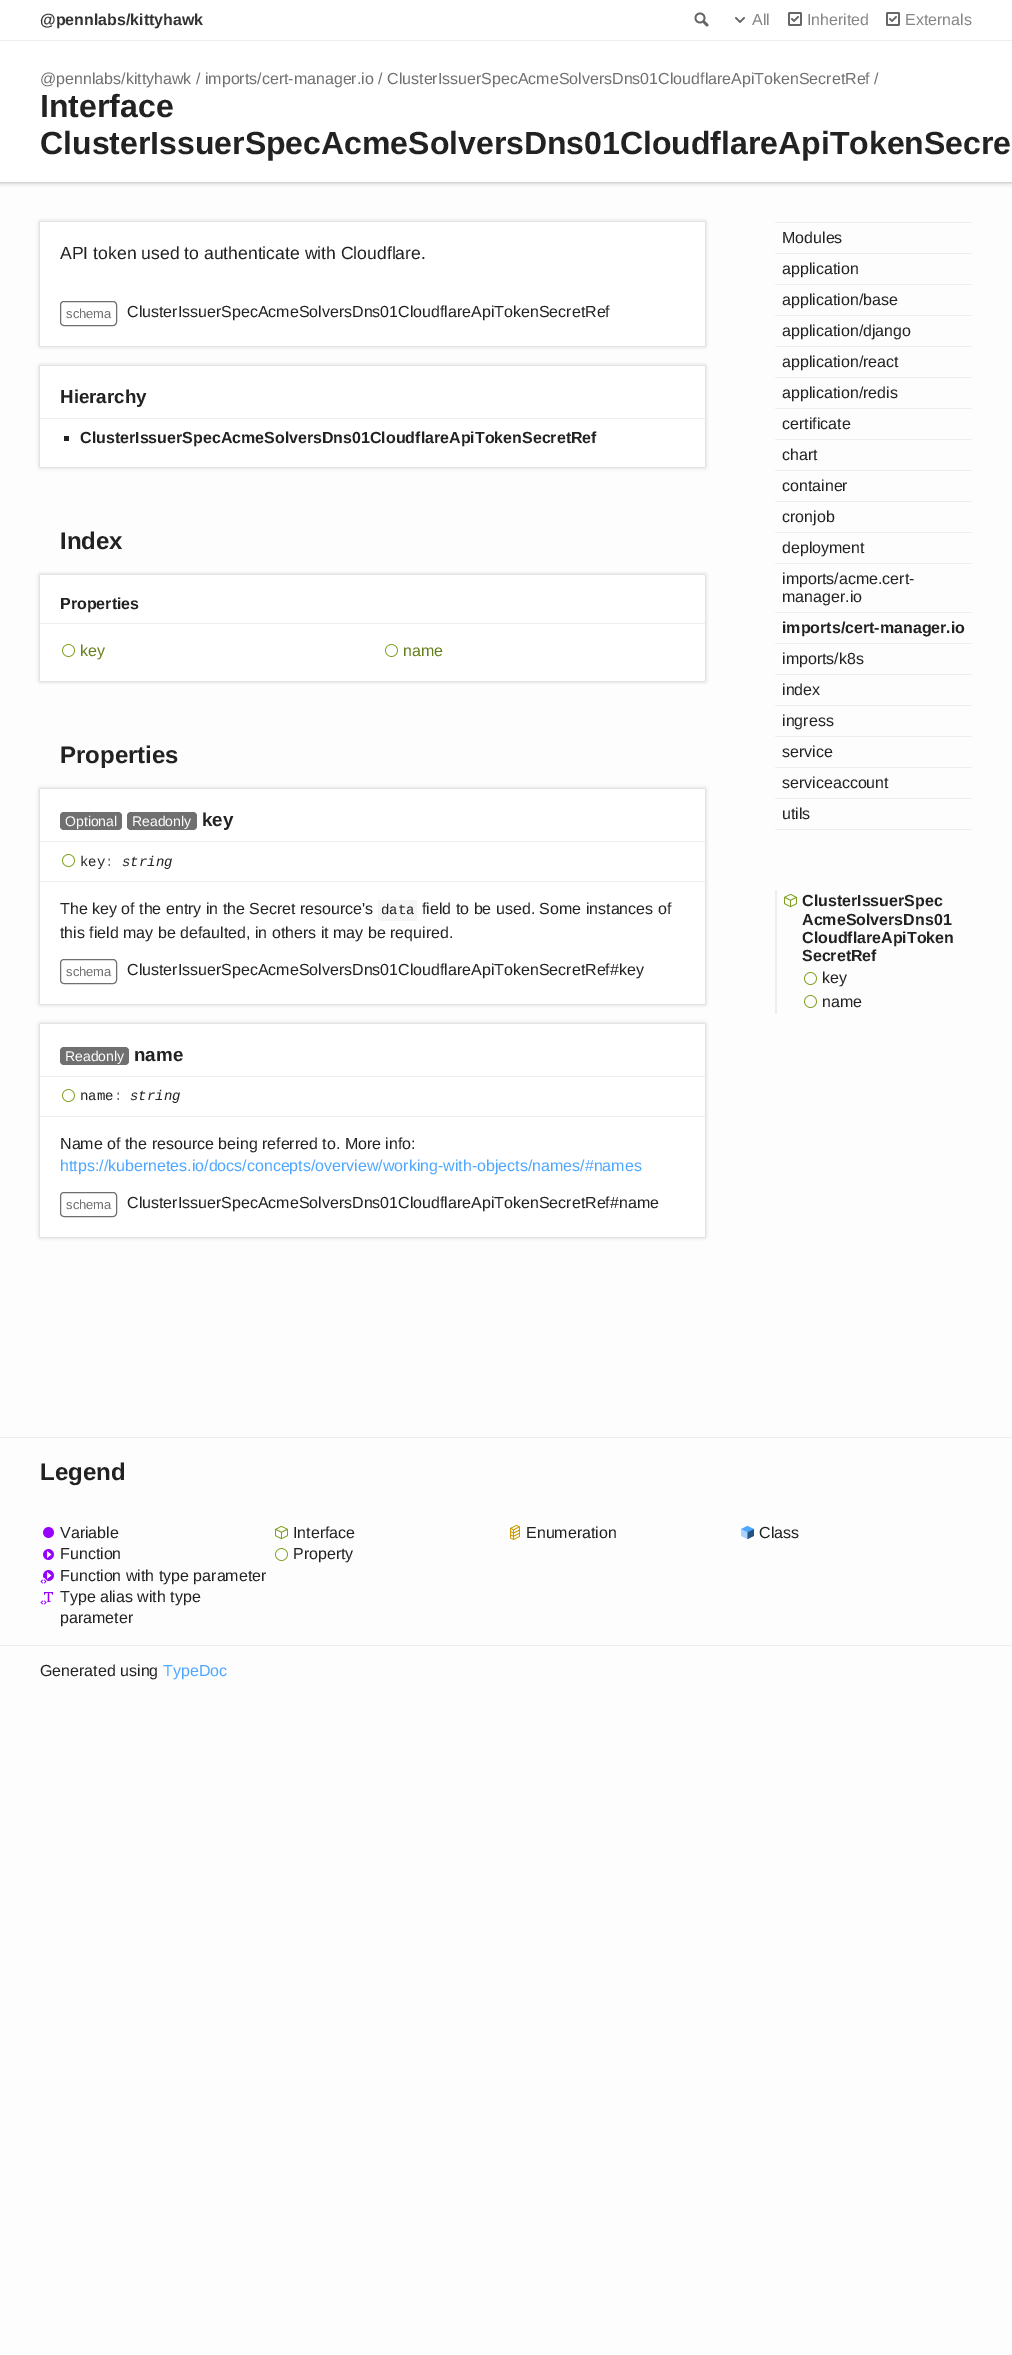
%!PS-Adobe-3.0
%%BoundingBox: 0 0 1012 2355
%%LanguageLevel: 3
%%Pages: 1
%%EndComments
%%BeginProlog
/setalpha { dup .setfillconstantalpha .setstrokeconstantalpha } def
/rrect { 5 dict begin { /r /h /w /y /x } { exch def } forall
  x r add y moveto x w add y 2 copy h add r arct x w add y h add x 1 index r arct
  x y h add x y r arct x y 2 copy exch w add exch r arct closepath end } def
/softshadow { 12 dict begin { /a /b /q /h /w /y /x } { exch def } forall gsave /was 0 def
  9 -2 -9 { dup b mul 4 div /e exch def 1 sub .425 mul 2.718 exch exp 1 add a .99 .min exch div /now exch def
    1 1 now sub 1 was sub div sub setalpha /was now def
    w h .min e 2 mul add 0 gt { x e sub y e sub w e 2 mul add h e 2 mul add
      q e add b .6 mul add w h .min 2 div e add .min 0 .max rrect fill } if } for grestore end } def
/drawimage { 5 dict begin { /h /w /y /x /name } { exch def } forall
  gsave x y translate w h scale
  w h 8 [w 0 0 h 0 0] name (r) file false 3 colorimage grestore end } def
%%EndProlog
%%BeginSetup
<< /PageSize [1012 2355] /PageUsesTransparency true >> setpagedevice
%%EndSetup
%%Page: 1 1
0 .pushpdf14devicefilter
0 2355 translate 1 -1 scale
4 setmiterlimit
0.992 setgray
0 0 1012 2355 rectfill
0 setgray
0 0 1012 182 0 2.5 0.35 softshadow
1 setgray
0 0 1012 182 rectfill
0.933 setgray
0 40 1012 1 rectfill
(images/1.raw) 694 12 15 15 drawimage
(images/2.raw) 735 17 10 6 drawimage
(images/3.raw) 787 12 15 14 drawimage
(images/3.raw) 885 12 15 14 drawimage
0 setgray
40 222 665 124 0 2 0.25 softshadow
1 setgray
40 222 665 124 rectfill
0.439 setgray
60.5 301.5 56 24 3.5 rrect stroke
0 setgray
40 366 665 101 0 2 0.25 softshadow
1 setgray
40 366 665 101 rectfill
0.933 setgray
40 418 665 1 rectfill
0.133 setgray
64 436 5 5 rectfill
0 setgray
40 575 665 106 0 2 0.25 softshadow
1 setgray
40 575 665 106 rectfill
0.933 setgray
40 623 665 1 rectfill
(images/4.raw) 62 644 13 13 drawimage
(images/4.raw) 385 644 13 13 drawimage
0 setgray
40 789 665 215 0 2 0.25 softshadow
1 setgray
40 789 665 215 rectfill
0.439 setgray
60 812 62 18 4 rrect fill
127 812 70 18 4 rrect fill
0.933 setgray
40 841 665 1 rectfill
40 881 665 1 rectfill
(images/4.raw) 62 854 13 13 drawimage
0.961 setgray
378 900 39 21 rectfill
0.439 setgray
60.5 959.5 56 24 3.5 rrect stroke
0 setgray
40 1024 665 213 0 2 0.25 softshadow
1 setgray
40 1024 665 213 rectfill
0.439 setgray
60 1047 69 18 4 rrect fill
0.933 setgray
40 1076 665 1 rectfill
40 1116 665 1 rectfill
(images/4.raw) 62 1089 13 13 drawimage
0.439 setgray
60.5 1192.5 56 24 3.5 rrect stroke
0.933 setgray
775 829 197 1 rectfill
775 222 197 1 rectfill
775 253 197 1 rectfill
775 284 197 1 rectfill
775 315 197 1 rectfill
775 346 197 1 rectfill
775 377 197 1 rectfill
775 408 197 1 rectfill
775 439 197 1 rectfill
775 470 197 1 rectfill
775 501 197 1 rectfill
775 532 197 1 rectfill
775 563 197 1 rectfill
775 612 197 1 rectfill
775 643 197 1 rectfill
775 674 197 1 rectfill
775 705 197 1 rectfill
775 736 197 1 rectfill
775 767 197 1 rectfill
775 798 197 1 rectfill
775 890 2 124 rectfill
(images/5.raw) 784 893 13 15 drawimage
(images/6.raw) 804 972 13 13 drawimage
(images/6.raw) 804 995 13 13 drawimage
0 1437 1012 1 rectfill
0 1645 1012 1 rectfill
(images/7.raw) 43 1527 11 11 drawimage
(images/8.raw) 43 1549 11 11 drawimage
(images/9.raw) 40 1570 14 14 drawimage
(images/10.raw) 40 1592 13 13 drawimage
(images/11.raw) 275 1525 13 15 drawimage
(images/4.raw) 275 1548 13 13 drawimage
(images/12.raw) 510 1524 10 16 drawimage
(images/13.raw) 741 1525 13 15 drawimage
/LiberationSans-Bold [16 0 0 -16 0 0] selectfont
0.2 setgray
40 25 moveto (@pennlabs/kittyhawk) show
/LiberationSans-Regular [16 0 0 -16 0 0] selectfont
0.522 setgray
752 25 moveto (All) show
807 25 moveto (Inherited) show
905 25 moveto (Externals) show
0.439 setgray
40 84 moveto (@pennlabs/kittyhawk / imports/cert-manager.io / ClusterIssuerSpecAcmeSolversDns01CloudflareApiTokenSecretRef /) show
/LiberationSans-Bold [32 0 0 -32 0 0] selectfont
0.133 setgray
40 117 moveto (Interface) show
40 154 moveto (ClusterIssuerSpecAcmeSolversDns01CloudflareApiTokenSecre) show
/LiberationSans-Regular [17.6 0 0 -17.6 0 0] selectfont
60 259 moveto (API token used to authenticate with Cloudflare.) show
/LiberationSans-Regular [13 0 0 -13 0 0] selectfont
0.439 setgray
66 318 moveto (schema) show
/LiberationSans-Regular [16 0 0 -16 0 0] selectfont
0.133 setgray
127 317 moveto (ClusterIssuerSpecAcmeSolversDns01CloudflareApiTokenSecretRef) show
/LiberationSans-Bold [18.75 0 0 -18.75 0 0] selectfont
60 403 moveto (Hierarchy) show
/LiberationSans-Bold [16 0 0 -16 0 0] selectfont
80 443 moveto (ClusterIssuerSpecAcmeSolversDns01CloudflareApiTokenSecretRef) show
/LiberationSans-Bold [24 0 0 -24 0 0] selectfont
60 549 moveto (Index) show
/LiberationSans-Bold [16 0 0 -16 0 0] selectfont
60 609 moveto (Properties) show
/LiberationSans-Regular [16 0 0 -16 0 0] selectfont
0.392 0.498 0.106 setrgbcolor
80 656 moveto (key) show
403 656 moveto (name) show
/LiberationSans-Bold [24 0 0 -24 0 0] selectfont
0.133 setgray
60 763 moveto (Properties) show
/LiberationSans-Regular [14 0 0 -14 0 0] selectfont
1 setgray
65 826 moveto (Optional) show
132 826 moveto (Readonly) show
/LiberationSans-Bold [18.75 0 0 -18.75 0 0] selectfont
0.133 setgray
202 826 moveto (key) show
/LiberationMono-Regular [14 0 0 -14 0 0] selectfont
80 866 moveto (key) show
0.439 setgray
105 866 moveto (:) show
/LiberationMono-Italic [14 0 0 -14 0 0] selectfont
0.133 setgray
122 866 moveto (string) show
/LiberationSans-Regular [16 0 0 -16 0 0] selectfont
60 914 moveto (The key of the entry in the Secret resource's) show
/LiberationMono-Regular [14 0 0 -14 0 0] selectfont
381 914 moveto (data) show
/LiberationSans-Regular [16 0 0 -16 0 0] selectfont
422 914 moveto (field to be used. Some instances of) show
60 938 moveto (this field may be defaulted, in others it may be required.) show
/LiberationSans-Regular [13 0 0 -13 0 0] selectfont
0.439 setgray
66 976 moveto (schema) show
/LiberationSans-Regular [16 0 0 -16 0 0] selectfont
0.133 setgray
127 975 moveto (ClusterIssuerSpecAcmeSolversDns01CloudflareApiTokenSecretRef#key) show
/LiberationSans-Regular [14 0 0 -14 0 0] selectfont
1 setgray
65 1061 moveto (Readonly) show
/LiberationSans-Bold [18.75 0 0 -18.75 0 0] selectfont
0.133 setgray
134 1061 moveto (name) show
/LiberationMono-Regular [14 0 0 -14 0 0] selectfont
80 1100 moveto (name) show
0.439 setgray
114 1100 moveto (:) show
/LiberationMono-Italic [14 0 0 -14 0 0] selectfont
0.133 setgray
130 1100 moveto (string) show
/LiberationSans-Regular [16 0 0 -16 0 0] selectfont
60 1149 moveto (Name of the resource being referred to. More info:) show
0.302 0.651 1 setrgbcolor
60 1171 moveto (https://kubernetes.io/docs/concepts/overview/working-with-objects/names/#names) show
/LiberationSans-Regular [13 0 0 -13 0 0] selectfont
0.439 setgray
66 1209 moveto (schema) show
/LiberationSans-Regular [16 0 0 -16 0 0] selectfont
0.133 setgray
127 1208 moveto (ClusterIssuerSpecAcmeSolversDns01CloudflareApiTokenSecretRef#name) show
782 243 moveto (Modules) show
782 274 moveto (application) show
782 305 moveto (application/base) show
782 336 moveto (application/django) show
782 367 moveto (application/react) show
782 398 moveto (application/redis) show
782 429 moveto (certificate) show
782 460 moveto (chart) show
782 491 moveto (container) show
782 522 moveto (cronjob) show
782 553 moveto (deployment) show
782 584 moveto (imports/acme.cert-) show
782 602 moveto (manager.io) show
/LiberationSans-Bold [16 0 0 -16 0 0] selectfont
782 633 moveto (imports/cert-manager.io) show
/LiberationSans-Regular [16 0 0 -16 0 0] selectfont
782 664 moveto (imports/k8s) show
782 695 moveto (index) show
782 726 moveto (ingress) show
782 757 moveto (service) show
782 788 moveto (serviceaccount) show
782 819 moveto (utils) show
/LiberationSans-Bold [16 0 0 -16 0 0] selectfont
802 906 moveto (ClusterIssuerSpec) show
802 925 moveto (AcmeSolversDns01) show
802 943 moveto (CloudflareApiToken) show
802 961 moveto (SecretRef) show
/LiberationSans-Regular [16 0 0 -16 0 0] selectfont
822 983 moveto (key) show
822 1007 moveto (name) show
/LiberationSans-Bold [24 0 0 -24 0 0] selectfont
40 1480 moveto (Legend) show
/LiberationSans-Regular [16 0 0 -16 0 0] selectfont
60 1538 moveto (Variable) show
60 1559 moveto (Function) show
60 1581 moveto (Function with type parameter) show
60 1602 moveto (Type alias with type) show
60 1623 moveto (parameter) show
293 1538 moveto (Interface) show
293 1559 moveto (Property) show
526 1538 moveto (Enumeration) show
759 1538 moveto (Class) show
40 1676 moveto (Generated using) show
0.302 0.651 1 setrgbcolor
163 1676 moveto (TypeDoc) show
.poppdf14devicefilter showpage
%%EOF
